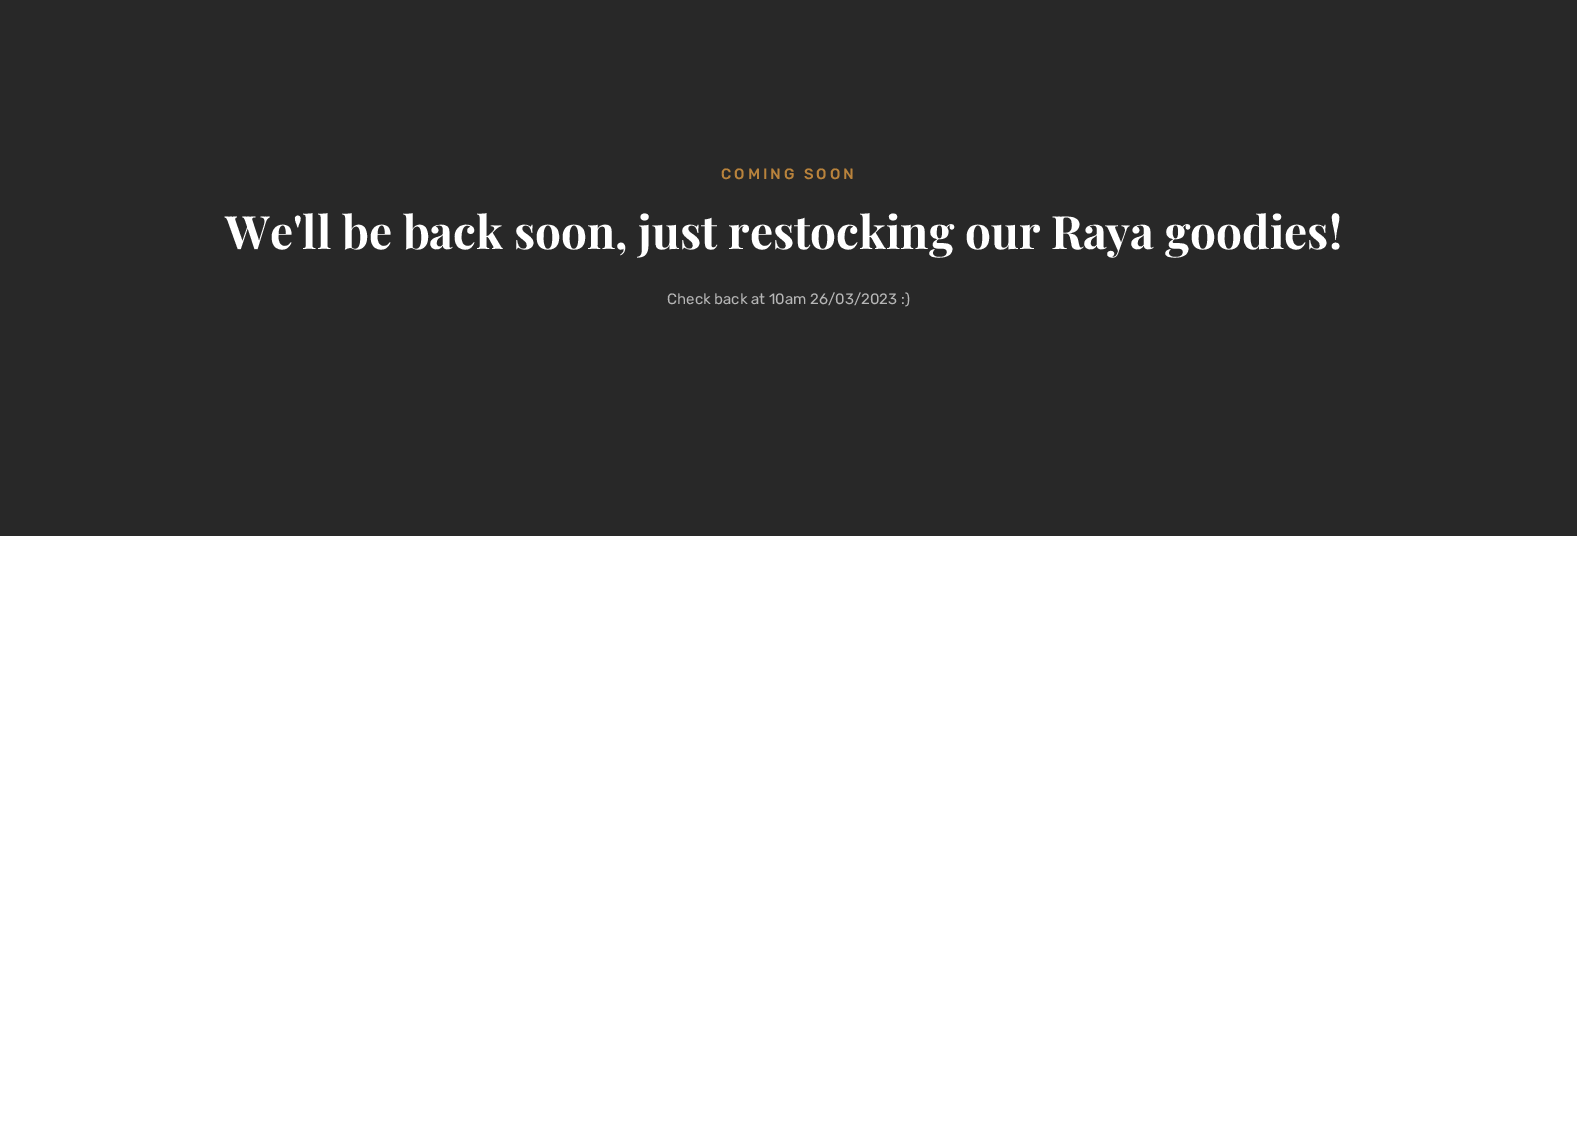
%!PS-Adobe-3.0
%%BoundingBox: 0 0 1577 1132
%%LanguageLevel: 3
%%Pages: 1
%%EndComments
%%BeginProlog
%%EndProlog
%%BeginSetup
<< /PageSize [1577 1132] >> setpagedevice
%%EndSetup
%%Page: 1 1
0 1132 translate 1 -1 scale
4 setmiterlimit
1 setgray
0 0 1577 1132 rectfill
0.157 setgray
0 0 1577 536 rectfill
/Rubik-Medium [15 0 0 -15 0 0] selectfont
0.725 0.514 0.235 setrgbcolor
721 179 moveto 3 0 (COMING SOON) ashow
/PlayfairDisplay-Bold [46 0 0 -46 0 0] selectfont
1 setgray
225 249 moveto (We'll be back soon, just restocking our Raya goodies!) show
/Rubik-Regular [15 0 0 -15 0 0] selectfont
0.714 setgray
667 304 moveto (Check back at 10am 26/03/2023 :\)) show
showpage
%%EOF
